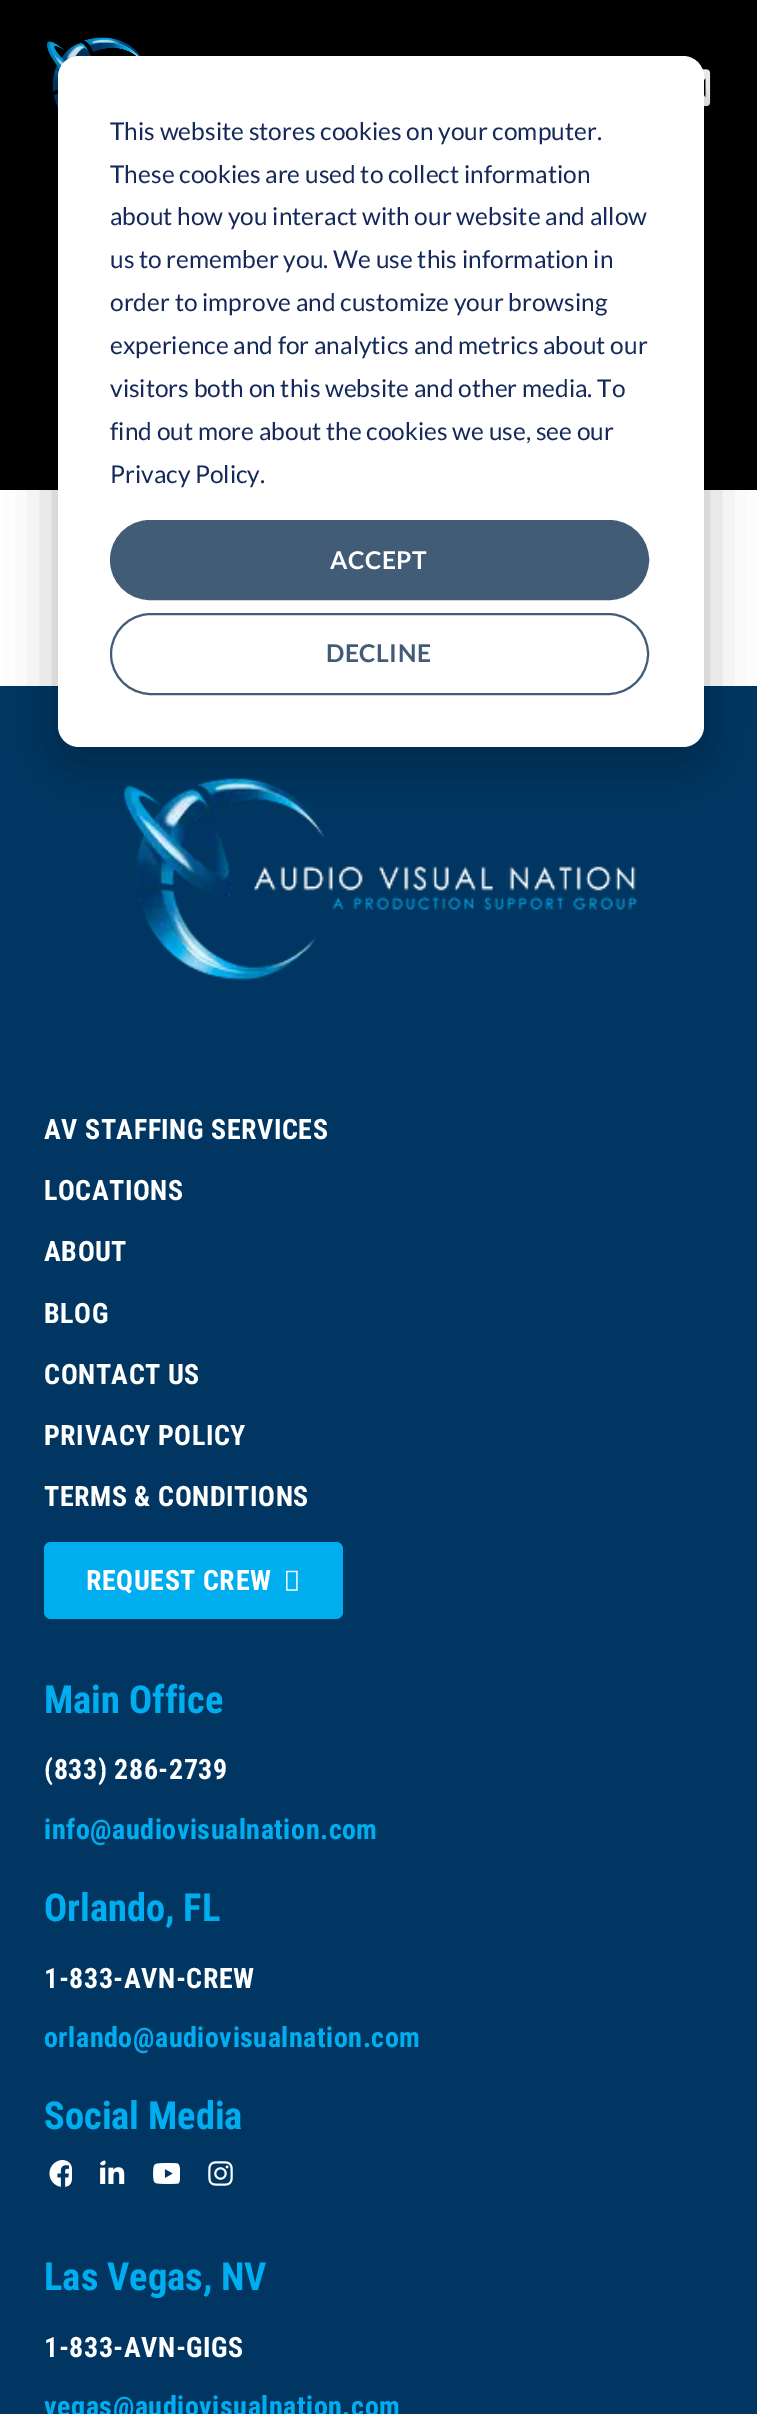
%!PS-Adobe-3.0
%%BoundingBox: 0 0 757 2414
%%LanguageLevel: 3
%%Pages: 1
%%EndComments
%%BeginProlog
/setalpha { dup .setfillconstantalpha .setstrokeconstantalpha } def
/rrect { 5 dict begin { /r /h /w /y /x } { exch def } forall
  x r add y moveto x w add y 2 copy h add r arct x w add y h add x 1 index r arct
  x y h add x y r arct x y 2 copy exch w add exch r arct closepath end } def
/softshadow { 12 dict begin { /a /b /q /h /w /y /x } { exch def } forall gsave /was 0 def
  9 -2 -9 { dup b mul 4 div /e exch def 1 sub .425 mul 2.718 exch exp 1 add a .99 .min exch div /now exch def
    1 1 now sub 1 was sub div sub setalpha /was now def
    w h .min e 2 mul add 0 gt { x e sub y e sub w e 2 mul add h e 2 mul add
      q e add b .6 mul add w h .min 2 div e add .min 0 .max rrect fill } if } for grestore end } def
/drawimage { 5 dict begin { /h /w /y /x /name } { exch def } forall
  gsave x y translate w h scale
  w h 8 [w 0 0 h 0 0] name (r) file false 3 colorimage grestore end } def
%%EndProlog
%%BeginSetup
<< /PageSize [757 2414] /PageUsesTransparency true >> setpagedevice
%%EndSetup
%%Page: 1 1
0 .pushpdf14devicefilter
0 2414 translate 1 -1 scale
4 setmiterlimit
1 setgray
0 0 757 2414 rectfill
0 setgray
0 0 757 490 rectfill
(images/1.raw) 47 37 94 70 drawimage
(images/2.raw) 702 69 9 38 drawimage
0 0.212 0.38 setrgbcolor
0 686 757 1728 rectfill
(images/3.raw) 124 778 514 203 drawimage
0 setgray
58 70 646 691 21 24.5 0.28 softshadow
1 setgray
58 56 646 691 21 rrect fill
0.259 0.357 0.463 setrgbcolor
111 521 537 78 39 rrect gsave fill grestore
2 setlinewidth
stroke
111 614 537 80 40 rrect stroke
0 0.682 0.937 setrgbcolor
44 1542 299 77 7 rrect fill
(images/4.raw) 286 1570 12 21 drawimage
(images/5.raw) 49 2160 23 27 drawimage
(images/6.raw) 100 2160 25 24 drawimage
(images/7.raw) 153 2163 27 21 drawimage
(images/8.raw) 208 2161 25 25 drawimage
/Lato-Regular [24.5 0 0 -24.5 0 0] selectfont
0.082 0.161 0.353 setrgbcolor
110 140 moveto (This website stores cookies on your computer.) show
110 183 moveto (These cookies are used to collect information) show
110 225 moveto (about how you interact with our website and allow) show
110 268 moveto (us to remember you. We use this information in) show
110 311 moveto (order to improve and customize your browsing) show
110 354 moveto (experience and for analytics and metrics about our) show
110 397 moveto (visitors both on this website and other media. To) show
110 440 moveto (find out more about the cookies we use, see our) show
110 483 moveto (Privacy Policy.) show
/Lato-Bold [24.5 0 0 -24.5 0 0] selectfont
1 setgray
330 569 moveto 0.5 0 (ACCEPT) ashow
0.259 0.357 0.463 setrgbcolor
326 662 moveto 0.5 0 (DECLINE) ashow
/RobotoCondensed-Bold [28 0 0 -28 0 0] selectfont
1 setgray
44 1139 moveto 0.55 0 (AV STAFFING SERVICES) ashow
44 1200 moveto 0.55 0 (LOCATIONS) ashow
44 1261 moveto 0.55 0 (ABOUT) ashow
44 1323 moveto 0.55 0 (BLOG) ashow
44 1384 moveto 0.55 0 (CONTACT US) ashow
44 1445 moveto 0.55 0 (PRIVACY POLICY) ashow
44 1506 moveto 0.55 0 (TERMS & CONDITIONS) ashow
86 1590 moveto 0.55 0 (REQUEST CREW) ashow
/RobotoCondensed-Bold [38.5 0 0 -38.5 0 0] selectfont
0 0.682 0.937 setrgbcolor
44 1713 moveto (Main Office) show
/RobotoCondensed-Bold [28 0 0 -28 0 0] selectfont
1 setgray
44 1779 moveto 0.55 0 (\(833\) 286-2739) ashow
0 0.682 0.937 setrgbcolor
44 1839 moveto 0.55 0 (info@audiovisualnation.com) ashow
/RobotoCondensed-Bold [38.5 0 0 -38.5 0 0] selectfont
44 1921 moveto (Orlando, FL) show
/RobotoCondensed-Bold [28 0 0 -28 0 0] selectfont
1 setgray
44 1988 moveto 0.55 0 (1-833-AVN-CREW) ashow
0 0.682 0.937 setrgbcolor
44 2047 moveto 0.55 0 (orlando@audiovisualnation.com) ashow
/RobotoCondensed-Bold [38.5 0 0 -38.5 0 0] selectfont
44 2129 moveto (Social Media) show
44 2290 moveto (Las Vegas, NV) show
/RobotoCondensed-Bold [28 0 0 -28 0 0] selectfont
1 setgray
44 2357 moveto 0.55 0 (1-833-AVN-GIGS) ashow
0 0.682 0.937 setrgbcolor
44 2416 moveto 0.55 0 (vegas@audiovisualnation.com) ashow
.poppdf14devicefilter showpage
%%EOF
